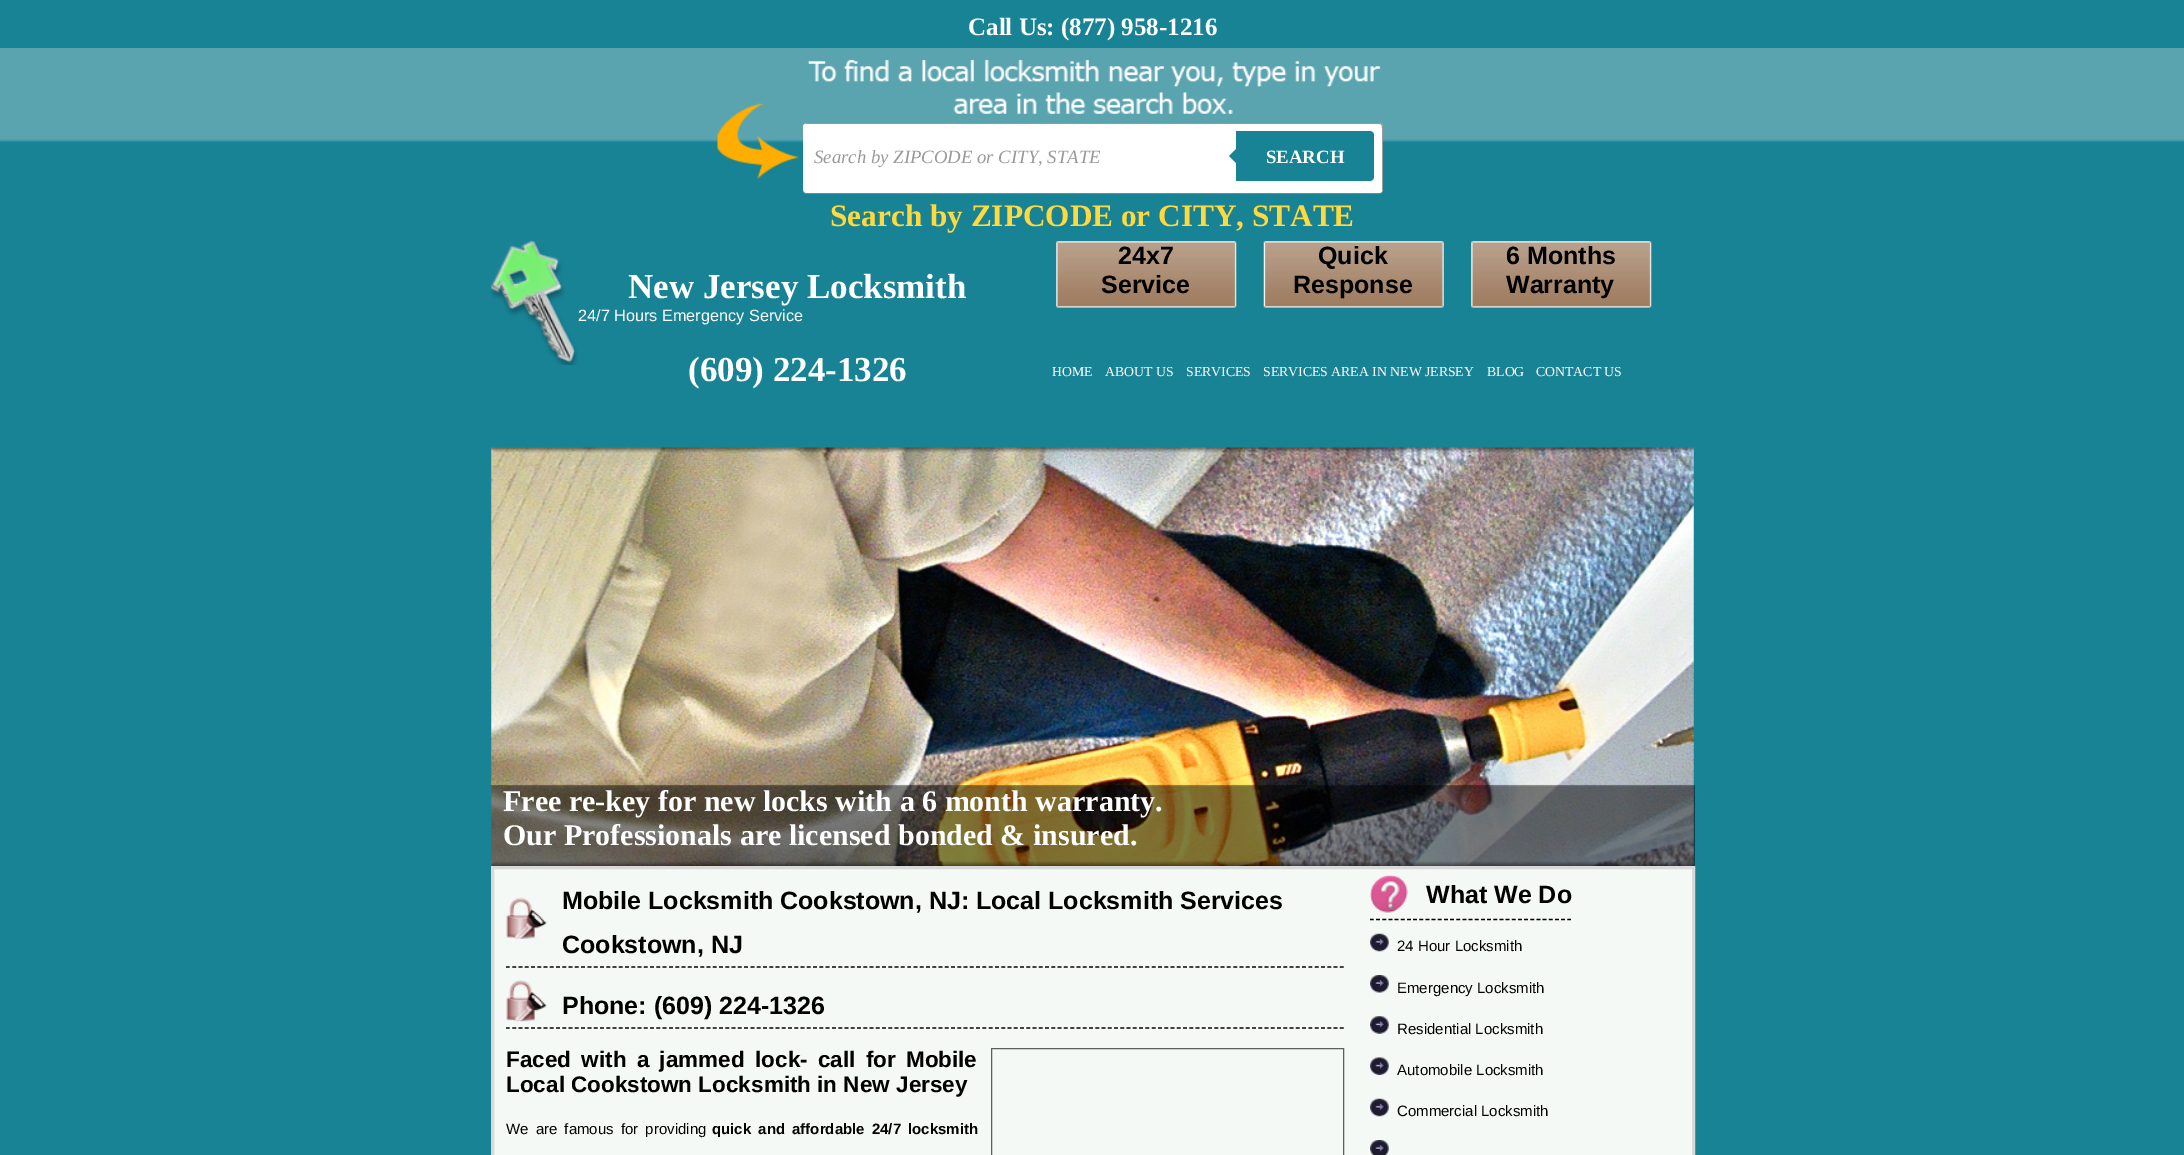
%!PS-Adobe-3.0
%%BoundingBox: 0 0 2184 1155
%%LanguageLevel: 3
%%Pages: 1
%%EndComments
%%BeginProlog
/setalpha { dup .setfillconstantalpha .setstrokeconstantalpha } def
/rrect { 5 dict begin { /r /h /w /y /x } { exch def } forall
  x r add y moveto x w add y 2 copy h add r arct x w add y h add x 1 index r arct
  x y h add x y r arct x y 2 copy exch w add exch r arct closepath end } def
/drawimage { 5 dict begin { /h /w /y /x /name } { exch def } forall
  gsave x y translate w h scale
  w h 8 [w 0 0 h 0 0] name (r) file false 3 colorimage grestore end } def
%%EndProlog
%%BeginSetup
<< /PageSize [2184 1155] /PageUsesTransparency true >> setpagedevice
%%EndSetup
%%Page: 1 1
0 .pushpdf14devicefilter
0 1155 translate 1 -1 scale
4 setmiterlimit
0.094 0.514 0.584 setrgbcolor
0 0 2184 1155 rectfill
gsave newpath 0 48 moveto 2184 48 lineto 2184 143 lineto 0 143 lineto closepath clip newpath
<< /ShadingType 2 /ColorSpace /DeviceRGB /Coords [1093 47 1093 235] /Extend [true true] /Function << /FunctionType 3 /Domain [0 1] /Functions [<< /FunctionType 2 /Domain [0 1] /C0 [0.353 0.643 0.69] /C1 [0.353 0.643 0.69] /N 1 >> << /FunctionType 2 /Domain [0 1] /C0 [0.353 0.643 0.69] /C1 [0.094 0.514 0.584] /N 1 >> << /FunctionType 2 /Domain [0 1] /C0 [0.094 0.514 0.584] /C1 [0.094 0.514 0.584] /N 1 >>] /Bounds [0.49 0.51] /Encode [0 1 0 1 0 1] >> >> shfill grestore
(images/1.raw) 717 59 664 120 drawimage
0.2 setalpha
1 setgray
newpath 803 191 moveto 803 193 805 194 807 194 curveto 1379 194 lineto 1381 194 1383 192 1383 190 curveto 1383 128 lineto 1382 126 lineto 1382 189 lineto 1382 191 1381 192 1379 192 curveto 806 192 lineto 805 192 804 192 803 191 curveto closepath fill
1 setalpha
803 123 580 70 4 rrect fill
0.4 setalpha
0 setgray
newpath 806 124 moveto 1379 124 lineto 1381 124 1382 125 1382 128 curveto 1382 190 lineto 1382 192 lineto 1382 191 1383 190 1383 189 curveto 1383 127 lineto 1383 125 1381 123 1379 123 curveto 807 123 lineto 806 123 805 124 804 124 curveto closepath fill
1 setalpha
0.094 0.514 0.584 setrgbcolor
newpath 1236 131 moveto 1370 131 lineto 1372 131 1374 133 1374 135 curveto 1374 177 lineto 1374 179 1372 181 1370 181 curveto 1236 181 lineto closepath fill
newpath 1239 146 moveto 1239 166 lineto 1229 156 lineto closepath fill
(images/2.raw) 491 241 87 124 drawimage
(images/3.raw) 1056 241 181 67 drawimage
(images/4.raw) 1263 241 181 67 drawimage
(images/3.raw) 1471 241 181 67 drawimage
(images/5.raw) 491 447 1204 419 drawimage
0.961 0.976 0.961 setrgbcolor
newpath 492.5 867.5 moveto 1693.5 867.5 lineto 1693.5 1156.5 lineto 492.5 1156.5 lineto closepath gsave fill grestore
0.855 0.851 0.851 setrgbcolor
3 setlinewidth
stroke
(images/6.raw) 506 897 41 42 drawimage
0 setgray
1.2 setlinewidth
[3.75 2.52] 0 setdash
newpath 506 967 moveto 1344 967 lineto stroke
(images/7.raw) 506 980 41 42 drawimage
newpath 506 1028 moveto 1344 1028 lineto stroke
0.365 0.369 0.373 setrgbcolor
1 setlinewidth
[] 0 setdash
991.5 1048.5 352 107 rectstroke
(images/8.raw) 1370 875 38 38 drawimage
0 setgray
1.2 setlinewidth
[3.75 2.42] 0 setdash
newpath 1370 919.5 moveto 1571 919.5 lineto stroke
(images/9.raw) 1370 933 19 19 drawimage
(images/10.raw) 1370 975 19 18 drawimage
(images/11.raw) 1370 1016 19 18 drawimage
(images/12.raw) 1370 1057 19 18 drawimage
(images/9.raw) 1370 1098 19 19 drawimage
(images/13.raw) 1370 1140 19 15 drawimage
/LiberationSerif-Bold [25 0 0 -25 0 0] selectfont
1 setgray
968 35 moveto (Call Us: \(877\) 958-1216) show
/LiberationSerif-Italic [18.75 0 0 -18.75 0 0] selectfont
0.6 setgray
814 163 moveto (Search by ZIPCODE or CITY, STATE) show
/LiberationSerif-Bold [18.75 0 0 -18.75 0 0] selectfont
1 setgray
1266 163 moveto (SEARCH) show
/LiberationSerif-Bold [31.25 0 0 -31.25 0 0] selectfont
1 0.851 0.239 setrgbcolor
830 226 moveto (Search by ZIPCODE or CITY, STATE) show
/LiberationSerif-Bold [35 0 0 -35 0 0] selectfont
1 setgray
628 298 moveto (New Jersey Locksmith) show
/LiberationSans-Regular [16.25 0 0 -16.25 0 0] selectfont
578 321 moveto (24/7 Hours Emergency Service) show
/LiberationSerif-Bold [35 0 0 -35 0 0] selectfont
688 381 moveto (\(609\) 224-1326) show
/LiberationSans-Bold [25 0 0 -25 0 0] selectfont
0 setgray
1118 264 moveto (24x7) show
1101 293 moveto (Service) show
1318 264 moveto (Quick) show
1293 293 moveto (Response) show
1506 264 moveto (6 Months) show
1506 293 moveto (Warranty) show
/LiberationSerif-Regular [13.75 0 0 -13.75 0 0] selectfont
1 setgray
1052 376 moveto (HOME) show
1105 376 moveto (ABOUT US) show
1186 376 moveto (SERVICES) show
1263 376 moveto (SERVICES AREA IN NEW JERSEY) show
1487 376 moveto (BLOG) show
1536 376 moveto (CONTACT US) show
/LiberationSerif-Bold [30 0 0 -30 0 0] selectfont
503 811 moveto (Free re-key for new locks with a 6 month warranty.) show
503 845 moveto (Our Professionals are licensed bonded & insured.) show
/LiberationSans-Bold [25 0 0 -25 0 0] selectfont
0 setgray
562 909 moveto (Mobile Locksmith Cookstown, NJ: Local Locksmith Services) show
562 953 moveto (Cookstown, NJ) show
562 1014 moveto (Phone: \(609\) 224-1326) show
/LiberationSans-Bold [22.5 0 0 -22.5 0 0] selectfont
506 1067 moveto 4 0 32 (Faced with a jammed) widthshow
755 1067 moveto 4 0 32 (lock- call for Mobile) widthshow
506 1092 moveto (Local Cookstown Locksmith in New Jersey) show
/LiberationSans-Regular [15 0 0 -15 0 0] selectfont
506 1134 moveto 3 0 32 (We are famous for providing) widthshow
/LiberationSans-Bold [15 0 0 -15 0 0] selectfont
712 1134 moveto 3 0 32 (quick and affordable 24/7 locksmith) widthshow
/LiberationSans-Bold [25 0 0 -25 0 0] selectfont
1426 903 moveto (What We Do) show
/LiberationSans-Regular [15 0 0 -15 0 0] selectfont
1397 951 moveto (24 Hour Locksmith) show
1397 993 moveto (Emergency Locksmith) show
1397 1034 moveto (Residential Locksmith) show
1397 1075 moveto (Automobile Locksmith) show
1397 1116 moveto (Commercial Locksmith) show
.poppdf14devicefilter showpage
%%EOF
